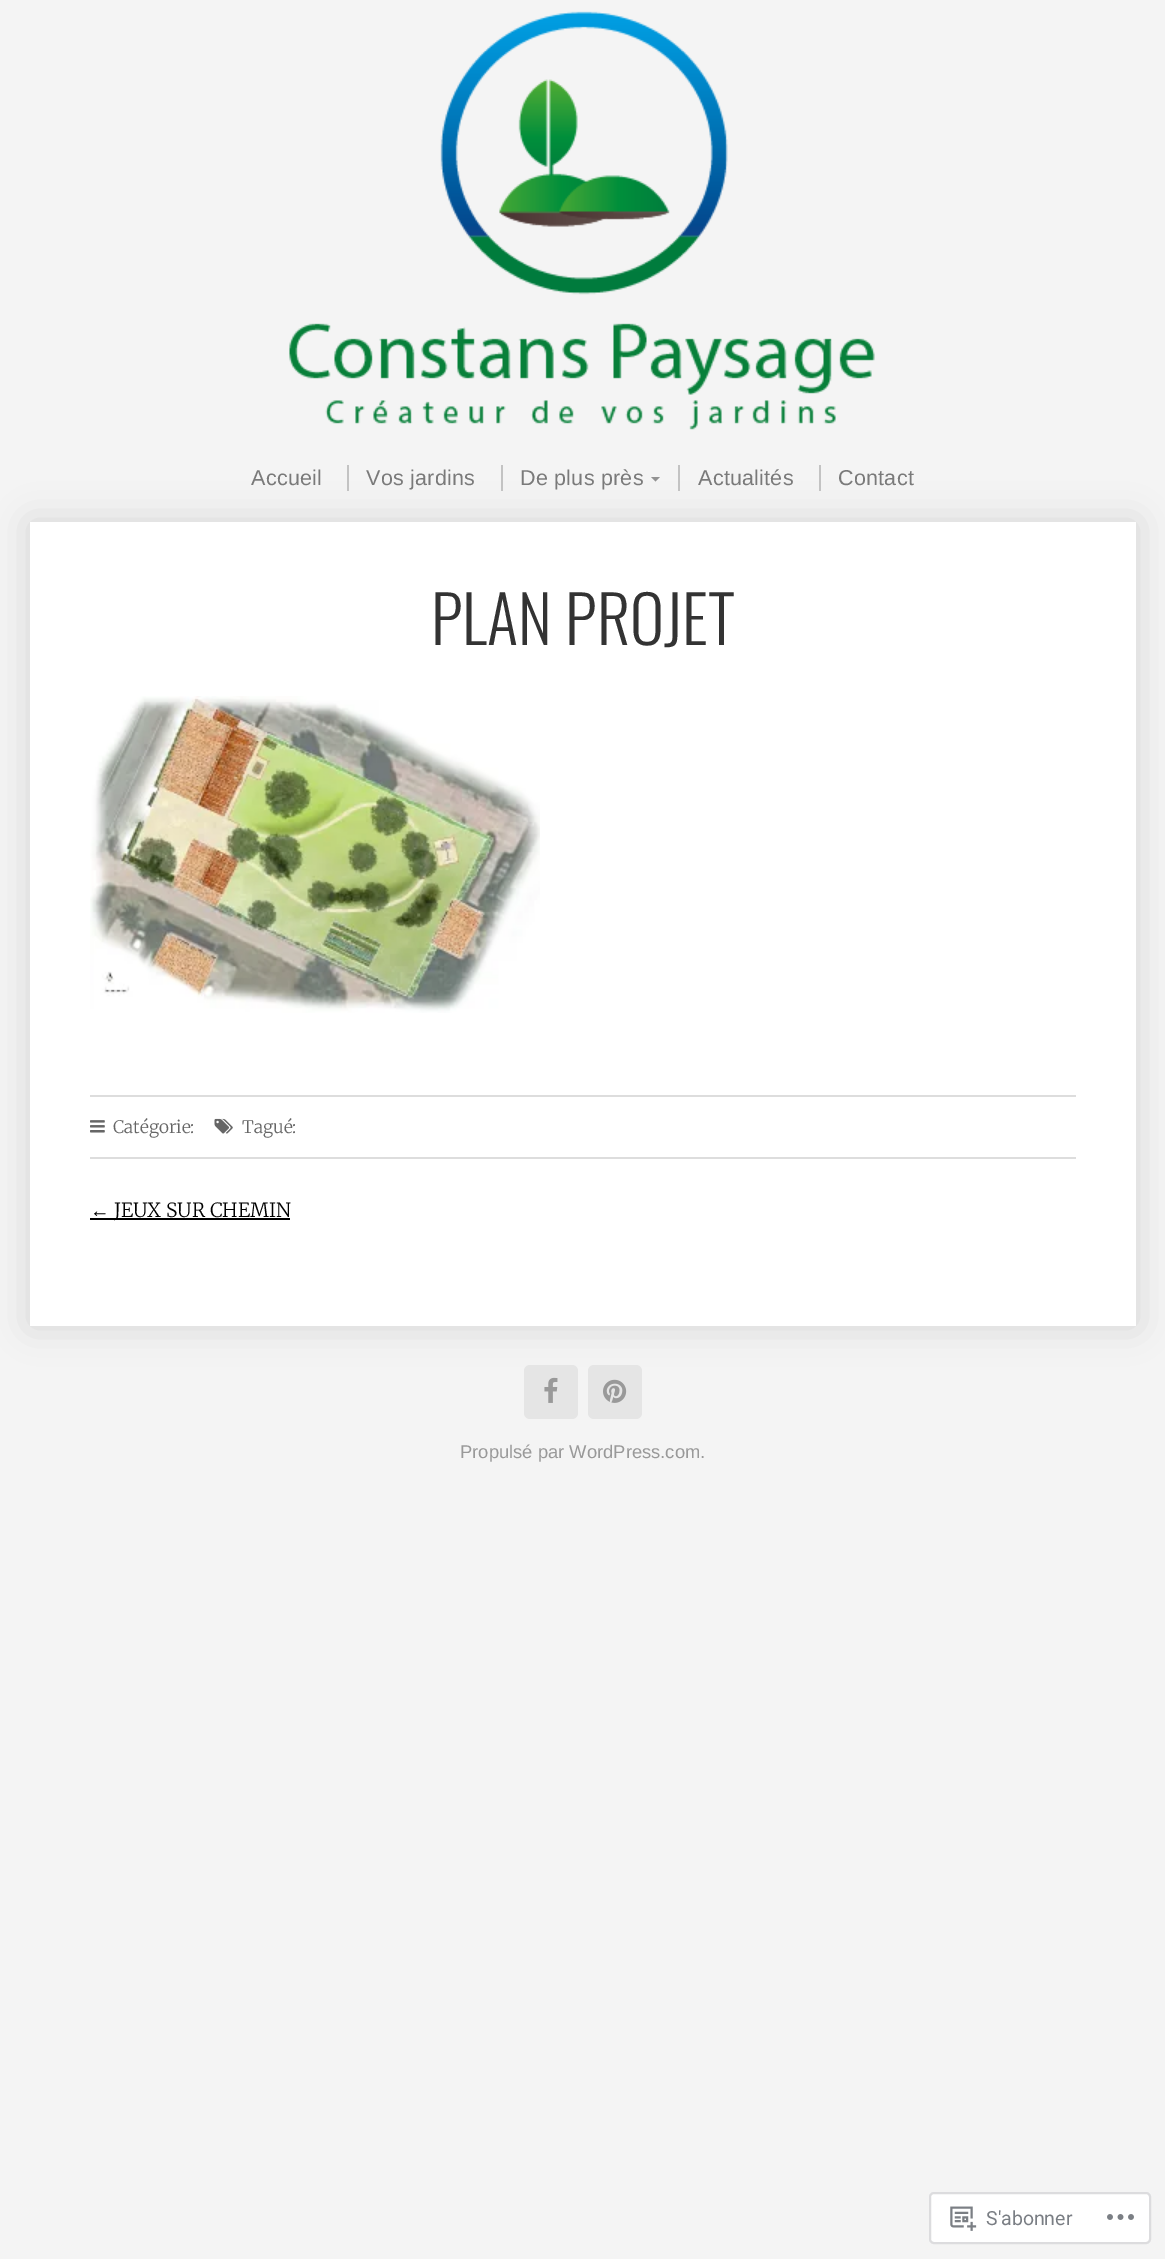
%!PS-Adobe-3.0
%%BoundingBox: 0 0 1165 2259
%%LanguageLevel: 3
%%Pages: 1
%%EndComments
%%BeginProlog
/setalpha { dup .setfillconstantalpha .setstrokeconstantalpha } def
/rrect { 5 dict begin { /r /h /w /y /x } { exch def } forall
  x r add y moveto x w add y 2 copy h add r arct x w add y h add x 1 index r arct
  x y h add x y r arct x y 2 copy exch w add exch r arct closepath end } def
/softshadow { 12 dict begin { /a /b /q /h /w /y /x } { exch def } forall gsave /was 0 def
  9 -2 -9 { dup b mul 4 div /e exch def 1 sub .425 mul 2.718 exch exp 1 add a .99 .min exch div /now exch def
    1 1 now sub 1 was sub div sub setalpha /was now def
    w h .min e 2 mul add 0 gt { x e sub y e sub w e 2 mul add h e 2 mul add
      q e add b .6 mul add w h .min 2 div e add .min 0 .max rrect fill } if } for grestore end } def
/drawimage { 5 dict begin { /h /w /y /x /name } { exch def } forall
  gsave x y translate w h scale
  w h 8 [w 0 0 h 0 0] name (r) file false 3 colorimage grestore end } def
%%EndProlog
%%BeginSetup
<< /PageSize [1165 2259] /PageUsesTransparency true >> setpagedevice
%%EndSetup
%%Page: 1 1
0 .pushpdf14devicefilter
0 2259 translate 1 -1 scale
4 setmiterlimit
0.957 setgray
0 0 1165 2259 rectfill
(images/1.raw) 289 11 586 419 drawimage
0 setgray
30 522 1106 804 0 18 0.12 softshadow
0.765 setgray
347 465 2 26 rectfill
501 465 2 26 rectfill
0.573 setgray
newpath 651 477 moveto 660 477 lineto 655.5 481.5 lineto closepath fill
0.765 setgray
678 465 2 26 rectfill
819 465 2 26 rectfill
1 setgray
30 522 1106 804 rectfill
(images/2.raw) 90 696 450 317 drawimage
0.867 setgray
90 1095 986 2 rectfill
90 1157 986 2 rectfill
(images/3.raw) 90 1120 15 13 drawimage
(images/4.raw) 214 1118 19 16 drawimage
0 setgray
90 1218 200 2 rectfill
0.898 setgray
524 1365 54 54 6 rrect fill
(images/5.raw) 544 1377 14 26 drawimage
588 1365 54 54 6 rrect fill
(images/6.raw) 603 1379 24 24 drawimage
1 setgray
930 2193 220 50 4 rrect gsave fill grestore
0.863 0.863 0.871 setrgbcolor
2 setlinewidth
stroke
(images/7.raw) 950 2206 27 25 drawimage
(images/8.raw) 1107 2214 27 6 drawimage
/LiberationSans-Regular [21.5 0 0 -21.5 0 0] selectfont
0.478 setgray
251 485 moveto 0.25 0 (Accueil) ashow
366 485 moveto 0.25 0 (Vos jardins) ashow
520 485 moveto 0.25 0 (De plus près) ashow
698 485 moveto 0.25 0 (Actualités) ashow
838 485 moveto 0.25 0 (Contact) ashow
/Oswald-Light [65 0 0 -65 0 0] selectfont
0.2 setgray
431 645 moveto (PLAN PROJET) show
/Merriweather-Light [17.25 0 0 -17.25 0 0] selectfont
0.4 setgray
113 1133 moveto (Catégorie:) show
242 1133 moveto (Tagué:) show
/LiberationSerif-Regular [19.5 0 0 -19.5 0 0] selectfont
0 setgray
90 1217 moveto (←) show
/Merriweather-Light [19.5 0 0 -19.5 0 0] selectfont
114 1217 moveto (JEUX SUR CHEMIN) show
/LiberationSans-Regular [18.4 0 0 -18.4 0 0] selectfont
0.6 setgray
460 1458 moveto (Propulsé par WordPress.com.) show
/Roboto-Regular [19.5 0 0 -19.5 0 0] selectfont
0.478 0.494 0.518 setrgbcolor
986 2225 moveto (S'abonner) show
.poppdf14devicefilter showpage
%%EOF
